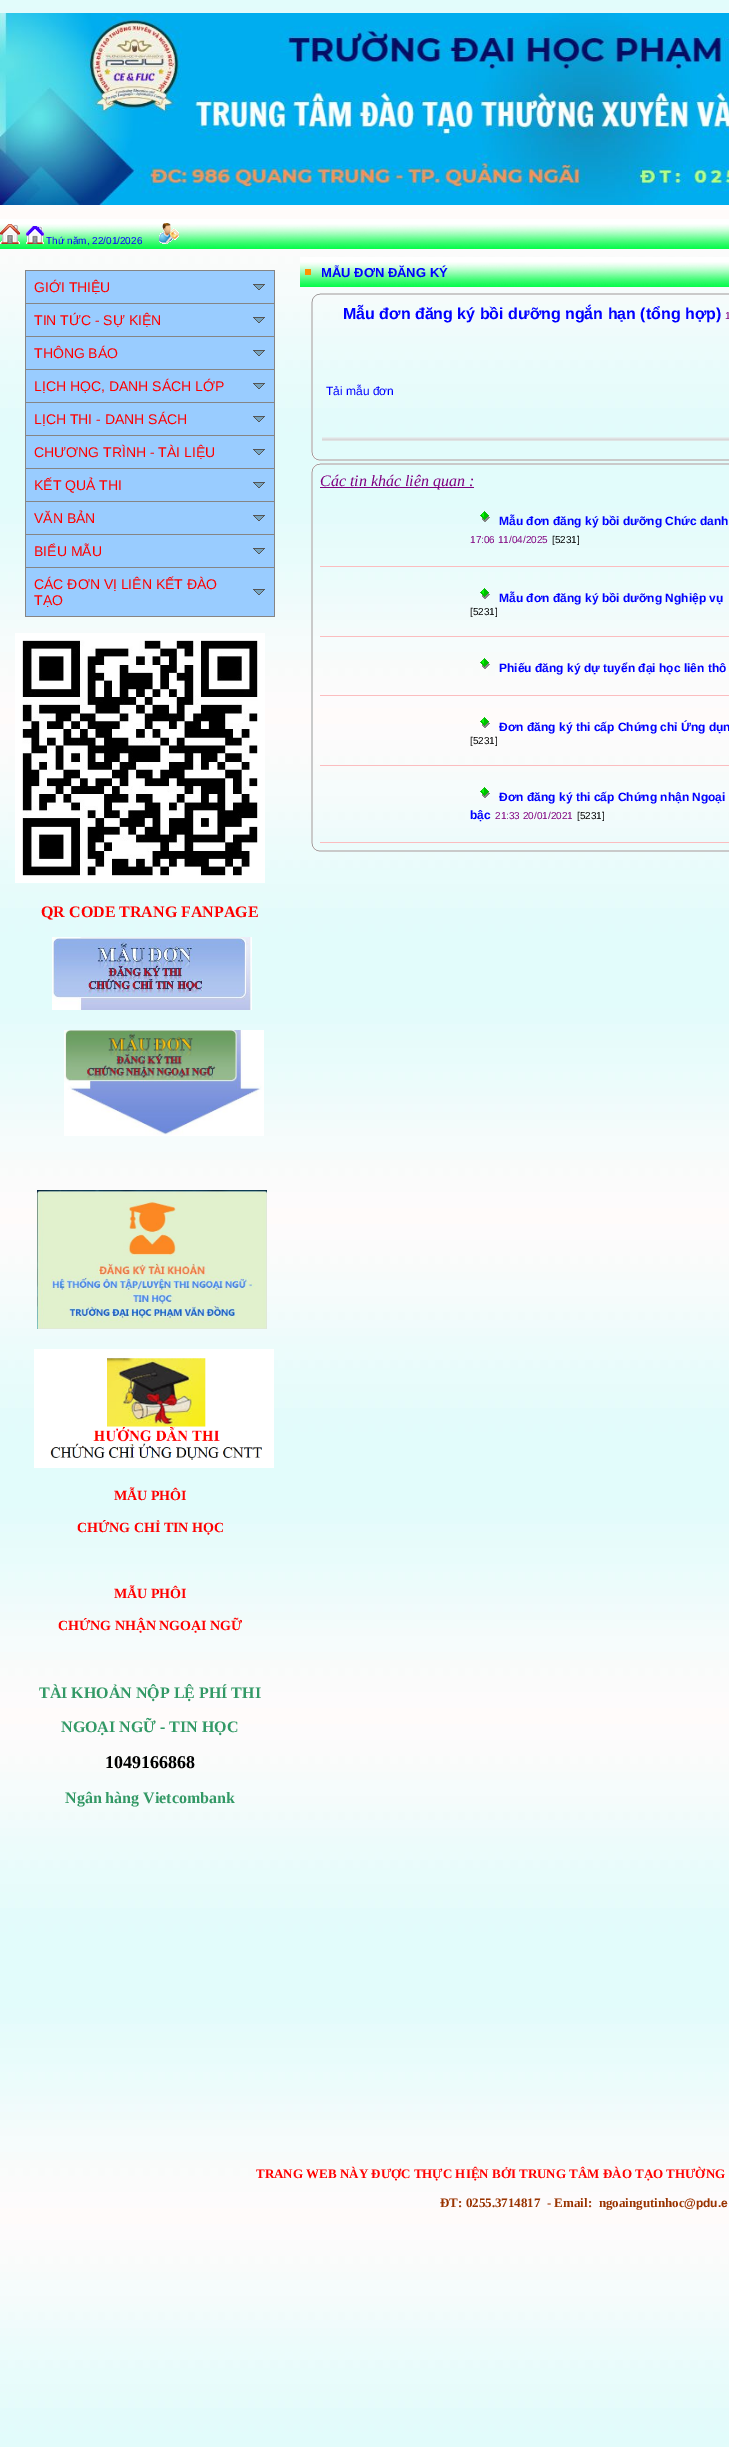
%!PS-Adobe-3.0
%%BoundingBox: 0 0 729 2447
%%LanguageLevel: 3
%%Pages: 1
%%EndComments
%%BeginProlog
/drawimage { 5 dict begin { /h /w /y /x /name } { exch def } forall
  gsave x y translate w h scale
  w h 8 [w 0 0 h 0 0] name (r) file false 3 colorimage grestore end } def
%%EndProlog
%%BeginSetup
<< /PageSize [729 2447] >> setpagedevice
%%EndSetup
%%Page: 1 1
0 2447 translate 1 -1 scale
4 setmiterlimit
1 setgray
0 0 729 2447 rectfill
(images/1.raw) 0 0 729 2447 drawimage
(images/2.raw) 0 13 729 192 drawimage
(images/3.raw) 0 219 230 30 drawimage
(images/4.raw) 0 224 20 20 drawimage
(images/5.raw) 26 226 18 18 drawimage
(images/6.raw) 159 223 20 21 drawimage
(images/7.raw) 230 219 499 30 drawimage
0.522 setgray
25 616 250 1 rectfill
0.6 0.8 1 setrgbcolor
26 271 248 32 rectfill
0.522 setgray
25 270 250 1 rectfill
274 270 1 33 rectfill
25 270 1 33 rectfill
0.333 setgray
253 284 12 1 rectfill
0.463 0.643 0.753 setrgbcolor
255 285 8 1 rectfill
0.333 setgray
263 285 1 1 rectfill
254 285 1 1 rectfill
0.463 0.643 0.753 setrgbcolor
256 286 6 1 rectfill
0.333 setgray
262 286 1 1 rectfill
255 286 1 1 rectfill
0.463 0.643 0.753 setrgbcolor
257 287 4 1 rectfill
0.333 setgray
261 287 1 1 rectfill
256 287 1 1 rectfill
0.463 0.643 0.753 setrgbcolor
258 288 2 1 rectfill
0.333 setgray
260 288 1 1 rectfill
257 288 1 1 rectfill
258 289 2 1 rectfill
0.6 0.8 1 setrgbcolor
26 304 248 32 rectfill
0.522 setgray
25 303 250 1 rectfill
274 303 1 33 rectfill
25 303 1 33 rectfill
0.333 setgray
253 317 12 1 rectfill
0.463 0.643 0.753 setrgbcolor
255 318 8 1 rectfill
0.333 setgray
263 318 1 1 rectfill
254 318 1 1 rectfill
0.463 0.643 0.753 setrgbcolor
256 319 6 1 rectfill
0.333 setgray
262 319 1 1 rectfill
255 319 1 1 rectfill
0.463 0.643 0.753 setrgbcolor
257 320 4 1 rectfill
0.333 setgray
261 320 1 1 rectfill
256 320 1 1 rectfill
0.463 0.643 0.753 setrgbcolor
258 321 2 1 rectfill
0.333 setgray
260 321 1 1 rectfill
257 321 1 1 rectfill
258 322 2 1 rectfill
0.6 0.8 1 setrgbcolor
26 337 248 32 rectfill
0.522 setgray
25 336 250 1 rectfill
274 336 1 33 rectfill
25 336 1 33 rectfill
0.333 setgray
253 350 12 1 rectfill
0.463 0.643 0.753 setrgbcolor
255 351 8 1 rectfill
0.333 setgray
263 351 1 1 rectfill
254 351 1 1 rectfill
0.463 0.643 0.753 setrgbcolor
256 352 6 1 rectfill
0.333 setgray
262 352 1 1 rectfill
255 352 1 1 rectfill
0.463 0.643 0.753 setrgbcolor
257 353 4 1 rectfill
0.333 setgray
261 353 1 1 rectfill
256 353 1 1 rectfill
0.463 0.643 0.753 setrgbcolor
258 354 2 1 rectfill
0.333 setgray
260 354 1 1 rectfill
257 354 1 1 rectfill
258 355 2 1 rectfill
0.6 0.8 1 setrgbcolor
26 370 248 32 rectfill
0.522 setgray
25 369 250 1 rectfill
274 369 1 33 rectfill
25 369 1 33 rectfill
0.333 setgray
253 383 12 1 rectfill
0.463 0.643 0.753 setrgbcolor
255 384 8 1 rectfill
0.333 setgray
263 384 1 1 rectfill
254 384 1 1 rectfill
0.463 0.643 0.753 setrgbcolor
256 385 6 1 rectfill
0.333 setgray
262 385 1 1 rectfill
255 385 1 1 rectfill
0.463 0.643 0.753 setrgbcolor
257 386 4 1 rectfill
0.333 setgray
261 386 1 1 rectfill
256 386 1 1 rectfill
0.463 0.643 0.753 setrgbcolor
258 387 2 1 rectfill
0.333 setgray
260 387 1 1 rectfill
257 387 1 1 rectfill
258 388 2 1 rectfill
0.6 0.8 1 setrgbcolor
26 403 248 32 rectfill
0.522 setgray
25 402 250 1 rectfill
274 402 1 33 rectfill
25 402 1 33 rectfill
0.333 setgray
253 416 12 1 rectfill
0.463 0.643 0.753 setrgbcolor
255 417 8 1 rectfill
0.333 setgray
263 417 1 1 rectfill
254 417 1 1 rectfill
0.463 0.643 0.753 setrgbcolor
256 418 6 1 rectfill
0.333 setgray
262 418 1 1 rectfill
255 418 1 1 rectfill
0.463 0.643 0.753 setrgbcolor
257 419 4 1 rectfill
0.333 setgray
261 419 1 1 rectfill
256 419 1 1 rectfill
0.463 0.643 0.753 setrgbcolor
258 420 2 1 rectfill
0.333 setgray
260 420 1 1 rectfill
257 420 1 1 rectfill
258 421 2 1 rectfill
0.6 0.8 1 setrgbcolor
26 436 248 32 rectfill
0.522 setgray
25 435 250 1 rectfill
274 435 1 33 rectfill
25 435 1 33 rectfill
0.333 setgray
253 449 12 1 rectfill
0.463 0.643 0.753 setrgbcolor
255 450 8 1 rectfill
0.333 setgray
263 450 1 1 rectfill
254 450 1 1 rectfill
0.463 0.643 0.753 setrgbcolor
256 451 6 1 rectfill
0.333 setgray
262 451 1 1 rectfill
255 451 1 1 rectfill
0.463 0.643 0.753 setrgbcolor
257 452 4 1 rectfill
0.333 setgray
261 452 1 1 rectfill
256 452 1 1 rectfill
0.463 0.643 0.753 setrgbcolor
258 453 2 1 rectfill
0.333 setgray
260 453 1 1 rectfill
257 453 1 1 rectfill
258 454 2 1 rectfill
0.6 0.8 1 setrgbcolor
26 469 248 32 rectfill
0.522 setgray
25 468 250 1 rectfill
274 468 1 33 rectfill
25 468 1 33 rectfill
0.333 setgray
253 482 12 1 rectfill
0.463 0.643 0.753 setrgbcolor
255 483 8 1 rectfill
0.333 setgray
263 483 1 1 rectfill
254 483 1 1 rectfill
0.463 0.643 0.753 setrgbcolor
256 484 6 1 rectfill
0.333 setgray
262 484 1 1 rectfill
255 484 1 1 rectfill
0.463 0.643 0.753 setrgbcolor
257 485 4 1 rectfill
0.333 setgray
261 485 1 1 rectfill
256 485 1 1 rectfill
0.463 0.643 0.753 setrgbcolor
258 486 2 1 rectfill
0.333 setgray
260 486 1 1 rectfill
257 486 1 1 rectfill
258 487 2 1 rectfill
0.6 0.8 1 setrgbcolor
26 502 248 32 rectfill
0.522 setgray
25 501 250 1 rectfill
274 501 1 33 rectfill
25 501 1 33 rectfill
0.333 setgray
253 515 12 1 rectfill
0.463 0.643 0.753 setrgbcolor
255 516 8 1 rectfill
0.333 setgray
263 516 1 1 rectfill
254 516 1 1 rectfill
0.463 0.643 0.753 setrgbcolor
256 517 6 1 rectfill
0.333 setgray
262 517 1 1 rectfill
255 517 1 1 rectfill
0.463 0.643 0.753 setrgbcolor
257 518 4 1 rectfill
0.333 setgray
261 518 1 1 rectfill
256 518 1 1 rectfill
0.463 0.643 0.753 setrgbcolor
258 519 2 1 rectfill
0.333 setgray
260 519 1 1 rectfill
257 519 1 1 rectfill
258 520 2 1 rectfill
0.6 0.8 1 setrgbcolor
26 535 248 32 rectfill
0.522 setgray
25 534 250 1 rectfill
274 534 1 33 rectfill
25 534 1 33 rectfill
0.333 setgray
253 548 12 1 rectfill
0.463 0.643 0.753 setrgbcolor
255 549 8 1 rectfill
0.333 setgray
263 549 1 1 rectfill
254 549 1 1 rectfill
0.463 0.643 0.753 setrgbcolor
256 550 6 1 rectfill
0.333 setgray
262 550 1 1 rectfill
255 550 1 1 rectfill
0.463 0.643 0.753 setrgbcolor
257 551 4 1 rectfill
0.333 setgray
261 551 1 1 rectfill
256 551 1 1 rectfill
0.463 0.643 0.753 setrgbcolor
258 552 2 1 rectfill
0.333 setgray
260 552 1 1 rectfill
257 552 1 1 rectfill
258 553 2 1 rectfill
0.6 0.8 1 setrgbcolor
26 568 248 48 rectfill
0.522 setgray
25 567 250 1 rectfill
274 567 1 49 rectfill
25 567 1 49 rectfill
0.333 setgray
253 589 12 1 rectfill
0.463 0.643 0.753 setrgbcolor
255 590 8 1 rectfill
0.333 setgray
263 590 1 1 rectfill
254 590 1 1 rectfill
0.463 0.643 0.753 setrgbcolor
256 591 6 1 rectfill
0.333 setgray
262 591 1 1 rectfill
255 591 1 1 rectfill
0.463 0.643 0.753 setrgbcolor
257 592 4 1 rectfill
0.333 setgray
261 592 1 1 rectfill
256 592 1 1 rectfill
0.463 0.643 0.753 setrgbcolor
258 593 2 1 rectfill
0.333 setgray
260 593 1 1 rectfill
257 593 1 1 rectfill
258 594 2 1 rectfill
(images/8.raw) 15 633 250 250 drawimage
(images/9.raw) 52 937 200 73 drawimage
(images/10.raw) 64 1030 200 106 drawimage
(images/11.raw) 37 1190 230 139 drawimage
(images/12.raw) 34 1349 240 119 drawimage
(images/13.raw) 300 257 17 30 drawimage
1 0.576 0 setrgbcolor
305 269 6 6 rectfill
(images/14.raw) 317 257 412 30 drawimage
(images/15.raw) 311 293 9 9 drawimage
0.792 setgray
320 293 409 2 rectfill
311 302 2 150 rectfill
(images/16.raw) 322 437 407 4 drawimage
(images/17.raw) 311 452 9 9 drawimage
320 459 409 2 rectfill
(images/18.raw) 311 463 9 9 drawimage
320 463 409 2 rectfill
311 472 2 371 rectfill
0.502 0 0.502 setrgbcolor
320 487 154 1 rectfill
(images/19.raw) 480 511 10 11 drawimage
0.984 0.741 0.749 setrgbcolor
320 566 409 1 rectfill
(images/20.raw) 480 588 10 11 drawimage
320 636 409 1 rectfill
(images/21.raw) 480 658 10 11 drawimage
320 695 409 1 rectfill
(images/22.raw) 480 717 10 11 drawimage
320 765 409 1 rectfill
(images/23.raw) 480 787 10 11 drawimage
320 842 409 1 rectfill
(images/24.raw) 311 843 9 9 drawimage
0.792 setgray
320 850 409 2 rectfill
/LiberationSans-Regular [10 0 0 -10 0 0] selectfont
0.059 0 1 setrgbcolor
46 244 moveto (Thứ năm, 22/01/2026) show
/LiberationSans-Regular [14 0 0 -14 0 0] selectfont
1 0 0 setrgbcolor
34 292 moveto (GIỚI THIỆU) show
34 325 moveto (TIN TỨC - SỰ KIỆN) show
34 358 moveto (THÔNG BÁO) show
34 391 moveto (LỊCH HỌC, DANH SÁCH LỚP) show
34 424 moveto (LỊCH THI - DANH SÁCH) show
34 457 moveto (CHƯƠNG TRÌNH - TÀI LIỆU) show
34 490 moveto (KẾT QUẢ THI) show
34 523 moveto (VĂN BẢN) show
34 556 moveto (BIỂU MẪU) show
34 589 moveto (CÁC ĐƠN VỊ LIÊN KẾT ĐÀO) show
34 605 moveto (TẠO) show
/LiberationSerif-Bold [16 0 0 -16 0 0] selectfont
41 917 moveto (QR CODE TRANG FANPAGE) show
/LiberationSerif-Bold [14 0 0 -14 0 0] selectfont
114 1500 moveto (MẪU PHÔI) show
77 1532 moveto (CHỨNG CHỈ TIN HỌC) show
114 1598 moveto (MẪU PHÔI) show
58 1630 moveto (CHỨNG NHẬN NGOẠI NGỮ) show
/LiberationSerif-Bold [16 0 0 -16 0 0] selectfont
0.2 0.6 0.4 setrgbcolor
39 1698 moveto (TÀI KHOẢN NỘP LỆ PHÍ THI) show
61 1732 moveto (NGOẠI NGỮ - TIN HỌC) show
/LiberationSerif-Bold [18 0 0 -18 0 0] selectfont
0 setgray
105 1768 moveto (1049166868) show
/LiberationSerif-Bold [16 0 0 -16 0 0] selectfont
0.2 0.6 0.4 setrgbcolor
65 1803 moveto (Ngân hàng Vietcombank) show
/LiberationSans-Bold [13 0 0 -13 0 0] selectfont
0 0 1 setrgbcolor
321 277 moveto (MẪU ĐƠN ĐĂNG KÝ) show
/LiberationSans-Bold [16 0 0 -16 0 0] selectfont
343 319 moveto (Mẫu đơn đăng ký bồi dưỡng ngắn hạn \(tổng hợp\)) show
/LiberationSans-Regular [10 0 0 -10 0 0] selectfont
0.502 0 0.502 setrgbcolor
725 319 moveto (1) show
/LiberationSans-Regular [12 0 0 -12 0 0] selectfont
0 0 1 setrgbcolor
326 395 moveto (Tải mẫu đơn) show
/LiberationSerif-Italic [16 0 0 -16 0 0] selectfont
0.502 0 0.502 setrgbcolor
320 486 moveto (Các tin khác liên quan :) show
/LiberationSans-Bold [12 0 0 -12 0 0] selectfont
0 0 1 setrgbcolor
499 525 moveto (Mẫu đơn đăng ký bồi dưỡng Chức danh) show
/LiberationSans-Regular [10 0 0 -10 0 0] selectfont
0.502 0 0.502 setrgbcolor
470 543 moveto (17:06 11/04/2025) show
0 setgray
552 543 moveto ([5231]) show
/LiberationSans-Bold [12 0 0 -12 0 0] selectfont
0 0 1 setrgbcolor
499 602 moveto (Mẫu đơn đăng ký bồi dưỡng Nghiệp vụ) show
/LiberationSans-Regular [10 0 0 -10 0 0] selectfont
0 setgray
470 615 moveto ([5231]) show
/LiberationSans-Bold [12 0 0 -12 0 0] selectfont
0 0 1 setrgbcolor
499 672 moveto (Phiếu đăng ký dự tuyển đại học liên thô) show
499 731 moveto (Đơn đăng ký thi cấp Chứng chỉ Ứng dụn) show
/LiberationSans-Regular [10 0 0 -10 0 0] selectfont
0 setgray
470 744 moveto ([5231]) show
/LiberationSans-Bold [12 0 0 -12 0 0] selectfont
0 0 1 setrgbcolor
499 801 moveto (Đơn đăng ký thi cấp Chứng nhận Ngoại) show
470 819 moveto (bậc) show
/LiberationSans-Regular [10 0 0 -10 0 0] selectfont
0.502 0 0.502 setrgbcolor
495 819 moveto (21:33 20/01/2021) show
0 setgray
577 819 moveto ([5231]) show
/LiberationSerif-Bold [13 0 0 -13 0 0] selectfont
1 0 0 setrgbcolor
256 2178 moveto (TRANG WEB NÀY ĐƯỢC THỰC HIỆN BỞI TRUNG TÂM ĐÀO TẠO THƯỜNG) show
0.6 0.2 0 setrgbcolor
440 2207 moveto (ĐT: 0255.3714817  - Email:  ngoaingutinhoc) show
/LiberationSans-Bold [12 0 0 -12 0 0] selectfont
684 2207 moveto (@pdu.e) show
showpage
%%EOF
